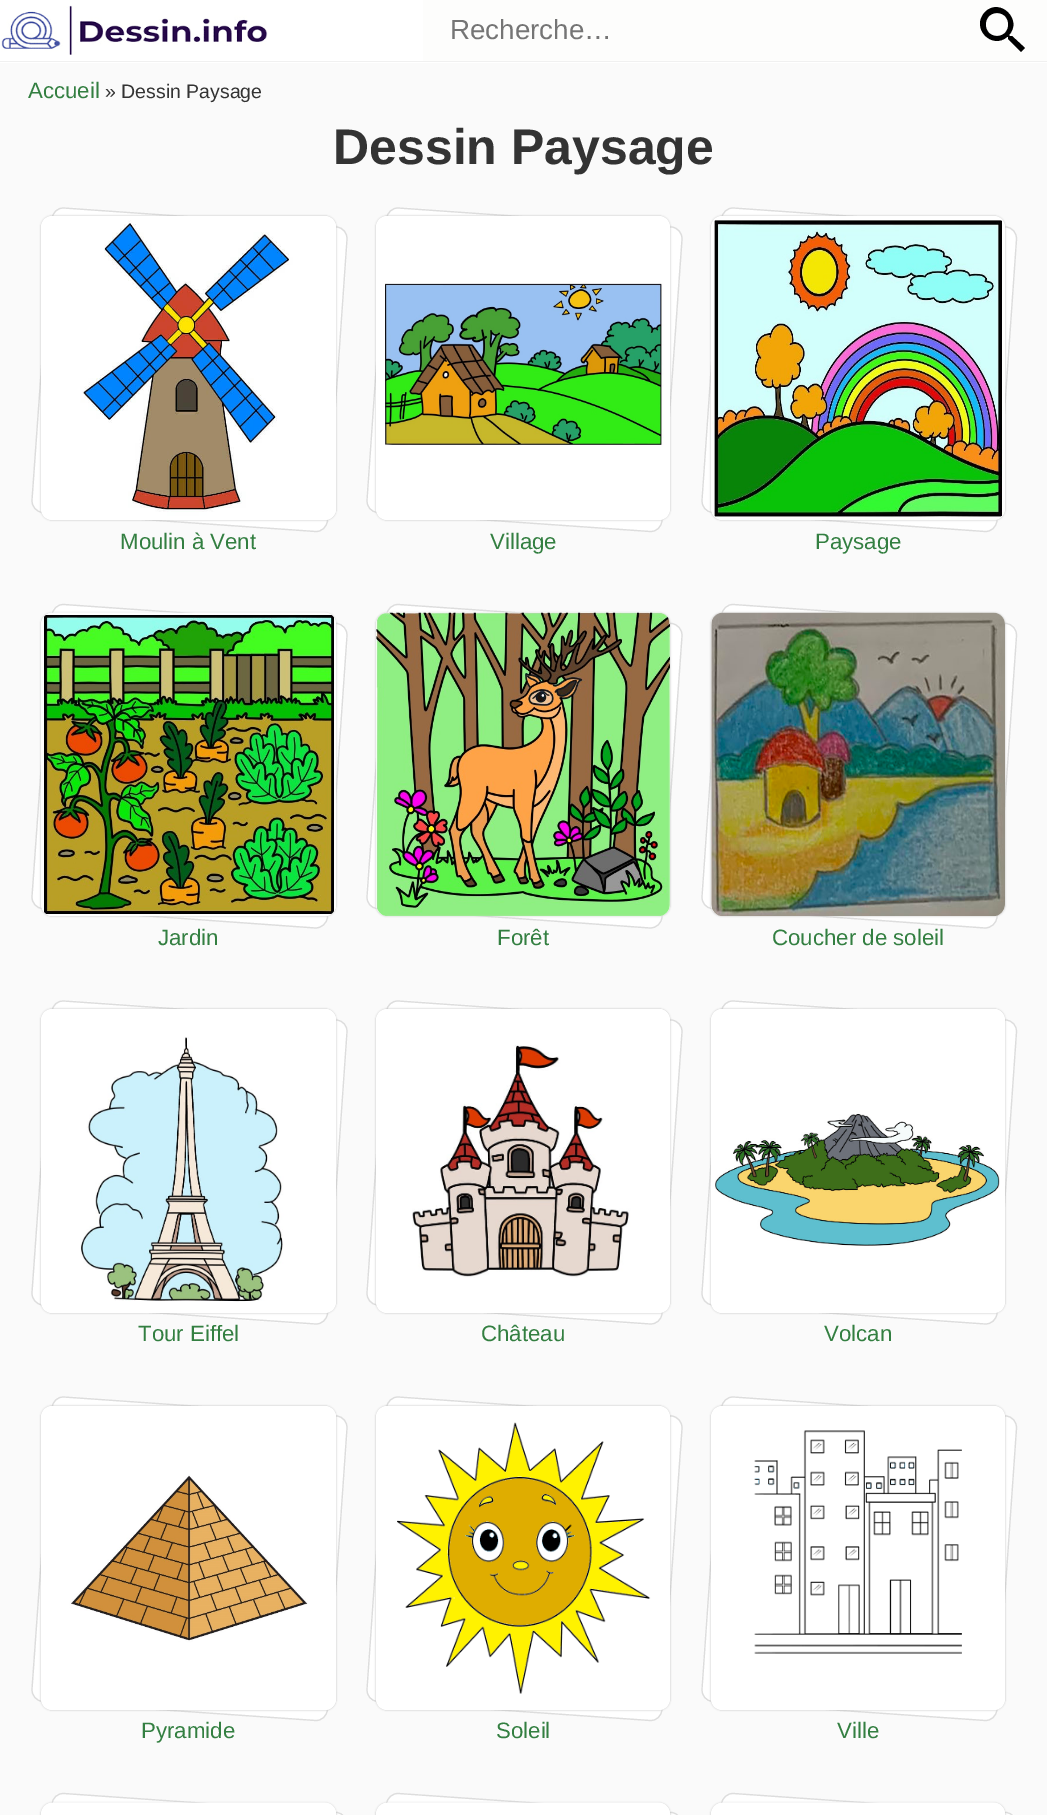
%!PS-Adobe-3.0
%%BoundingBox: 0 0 1047 1815
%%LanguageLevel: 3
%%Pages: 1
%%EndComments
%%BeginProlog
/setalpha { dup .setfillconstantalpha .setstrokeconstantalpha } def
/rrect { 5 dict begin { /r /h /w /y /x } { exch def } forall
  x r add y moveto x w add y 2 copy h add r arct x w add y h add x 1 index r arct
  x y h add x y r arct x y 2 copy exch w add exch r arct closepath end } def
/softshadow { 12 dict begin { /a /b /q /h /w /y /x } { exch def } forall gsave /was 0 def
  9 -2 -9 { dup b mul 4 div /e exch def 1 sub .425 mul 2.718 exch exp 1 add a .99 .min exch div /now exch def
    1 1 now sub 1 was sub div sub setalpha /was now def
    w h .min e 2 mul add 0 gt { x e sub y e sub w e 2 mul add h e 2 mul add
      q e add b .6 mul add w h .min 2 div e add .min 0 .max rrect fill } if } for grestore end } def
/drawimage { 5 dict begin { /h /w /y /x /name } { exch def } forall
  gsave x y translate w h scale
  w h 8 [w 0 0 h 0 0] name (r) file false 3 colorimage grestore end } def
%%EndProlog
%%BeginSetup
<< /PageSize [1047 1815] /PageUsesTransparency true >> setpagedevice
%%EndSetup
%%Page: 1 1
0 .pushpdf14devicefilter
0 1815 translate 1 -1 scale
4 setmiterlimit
0.98 setgray
0 0 1047 1815 rectfill
1 setgray
0 0 1047 63 rectfill
0.941 setgray
0 61 1047 1 rectfill
(images/1.raw) 1 5 267 50 drawimage
0.992 0.992 0.988 setrgbcolor
423 0 624 61 rectfill
0 setgray
newpath 1012 36 moveto 1010 36 lineto 1009 35 lineto 1023 20 1000 -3 985 12 curveto 970 28 992 50 1007 37 curveto 1008 37 lineto 1008 39 lineto 1021 52 lineto 1025 48 lineto closepath 997 36 moveto 982 36 982 13 997 13 curveto 1012 13 1012 36 997 36 curveto closepath fill
1 setgray
newpath 734 207 moveto 1006 227 lineto 1013 227 1018 233 1017 240 curveto 998 521 lineto 997 527 991 533 985 532 curveto 712 513 lineto 706 513 701 507 701 500 curveto 721 219 lineto 721 212 727 207 734 207 curveto closepath fill
0.867 setgray
1.2 setlinewidth
newpath 733.5 208 moveto 1006 227 lineto 1012.5 227.5 1017 233 1016.5 239.5 curveto 997 520.5 lineto 996.5 527 991 532 985 531.5 curveto 712.5 512.5 lineto 706 512 701.5 506.5 702 500 curveto 721.5 219 lineto 722 212.5 727.5 207.5 733.5 208 curveto closepath stroke
0.733 setgray
711 216 294 304 11 1 1 softshadow
1 setgray
711 216 294 304 11 rrect fill
(images/4.raw) 711 220 293 300 drawimage
newpath 64 1793 moveto 337 1812 lineto 343 1812 348 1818 348 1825 curveto 328 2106 lineto 328 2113 322 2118 315 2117 curveto 43 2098 lineto 36 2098 31 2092 32 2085 curveto 51 1804 lineto 52 1797 57 1792 64 1793 curveto closepath fill
0.867 setgray
newpath 64 1793.5 moveto 336.5 1812.5 lineto 343 1813 347.5 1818.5 347 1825 curveto 327.5 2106 lineto 327 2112.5 321.5 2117 315.5 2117 curveto 42.5 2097.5 lineto 36.5 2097.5 31.5 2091.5 32 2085.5 curveto 52 1804 lineto 52.5 1798 57.5 1793 64 1793.5 curveto closepath stroke
0.733 setgray
41 1803 295 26 11 1 1 softshadow
1 setgray
41 1803 295 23 11 rrect fill
(images/14.raw) 46 1802 290 11 drawimage
newpath 399 1793 moveto 671 1812 lineto 678 1812 683 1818 682 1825 curveto 663 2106 lineto 662 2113 657 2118 650 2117 curveto 377 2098 lineto 371 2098 366 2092 366 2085 curveto 386 1804 lineto 387 1797 392 1792 399 1793 curveto closepath fill
0.867 setgray
newpath 398.5 1793.5 moveto 671.5 1812.5 lineto 677.5 1813 682.5 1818.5 682 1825 curveto 662 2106 lineto 661.5 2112.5 656.5 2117 650 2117 curveto 377.5 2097.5 lineto 371 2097.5 366.5 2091.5 367 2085.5 curveto 386.5 1804 lineto 387 1798 392.5 1793 398.5 1793.5 curveto closepath stroke
0.733 setgray
376 1803 294 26 11 1 1 softshadow
1 setgray
376 1803 294 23 11 rrect fill
(images/15.raw) 381 1802 289 11 drawimage
newpath 734 1793 moveto 1006 1812 lineto 1013 1812 1018 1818 1017 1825 curveto 998 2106 lineto 997 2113 991 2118 985 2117 curveto 712 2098 lineto 706 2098 701 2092 701 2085 curveto 721 1804 lineto 721 1797 727 1792 734 1793 curveto closepath fill
0.867 setgray
newpath 733.5 1793.5 moveto 1006 1812.5 lineto 1012.5 1813 1017 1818.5 1016.5 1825 curveto 997 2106 lineto 996.5 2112.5 991 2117 985 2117 curveto 712.5 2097.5 lineto 706 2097.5 701.5 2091.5 702 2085.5 curveto 721.5 1804 lineto 722 1798 727.5 1793 733.5 1793.5 curveto closepath stroke
0.733 setgray
711 1803 294 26 11 1 1 softshadow
1 setgray
711 1803 294 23 11 rrect fill
(images/16.raw) 716 1802 289 11 drawimage
/LiberationSans-Regular [27.75 0 0 -27.75 0 0] selectfont
0.459 setgray
450 39 moveto (Recherche…) show
/LiberationSans-Regular [22.25 0 0 -22.25 0 0] selectfont
0.2 0.498 0.255 setrgbcolor
28 98 moveto (Accueil) show
/LiberationSans-Regular [19.5 0 0 -19.5 0 0] selectfont
0.2 setgray
105 98 moveto (» Dessin Paysage) show
/LiberationSans-Bold [50 0 0 -50 0 0] selectfont
333 164 moveto (Dessin Paysage) show
/LiberationSans-Regular [22.25 0 0 -22.25 0 0] selectfont
0.2 0.498 0.255 setrgbcolor
120 549 moveto (Moulin à Vent) show
1 setgray
newpath 64 207 moveto 337 227 lineto 343 227 348 233 348 240 curveto 328 521 lineto 328 527 322 533 315 532 curveto 43 513 lineto 36 513 31 507 32 500 curveto 51 219 lineto 52 212 57 207 64 207 curveto closepath fill
0.867 setgray
newpath 64 208 moveto 336.5 227 lineto 343 227.5 347.5 233 347 239.5 curveto 327.5 520.5 lineto 327 527 321.5 532 315.5 531.5 curveto 42.5 512.5 lineto 36.5 512 31.5 506.5 32 500 curveto 52 219 lineto 52.5 212.5 57.5 207.5 64 208 curveto closepath stroke
0.733 setgray
41 216 295 304 11 1 1 softshadow
1 setgray
41 216 295 304 11 rrect fill
(images/2.raw) 49 220 287 300 drawimage
0.2 0.498 0.255 setrgbcolor
490 549 moveto (Village) show
1 setgray
newpath 399 207 moveto 671 227 lineto 678 227 683 233 682 240 curveto 663 521 lineto 662 527 657 533 650 532 curveto 377 513 lineto 371 513 366 507 366 500 curveto 386 219 lineto 387 212 392 207 399 207 curveto closepath fill
0.867 setgray
newpath 398.5 208 moveto 671.5 227 lineto 677.5 227.5 682.5 233 682 239.5 curveto 662 520.5 lineto 661.5 527 656.5 532 650 531.5 curveto 377.5 512.5 lineto 371 512 366.5 506.5 367 500 curveto 386.5 219 lineto 387 212.5 392.5 207.5 398.5 208 curveto closepath stroke
0.733 setgray
376 216 294 304 11 1 1 softshadow
1 setgray
376 216 294 304 11 rrect fill
(images/3.raw) 385 281 279 239 drawimage
0.2 0.498 0.255 setrgbcolor
815 549 moveto (Paysage) show
158 945 moveto (Jardin) show
1 setgray
newpath 64 604 moveto 337 623 lineto 343 623 348 629 348 636 curveto 328 917 lineto 328 924 322 929 315 928 curveto 43 909 lineto 36 909 31 903 32 896 curveto 51 615 lineto 52 608 57 603 64 604 curveto closepath fill
0.867 setgray
newpath 64 604.5 moveto 336.5 623.5 lineto 343 624 347.5 629.5 347 636 curveto 327.5 917 lineto 327 923.5 321.5 928 315.5 928 curveto 42.5 908.5 lineto 36.5 908.5 31.5 902.5 32 896.5 curveto 52 615.5 lineto 52.5 609 57.5 604 64 604.5 curveto closepath stroke
0.733 setgray
41 613 295 303 11 1 1 softshadow
1 setgray
41 613 295 303 11 rrect fill
(images/5.raw) 41 612 295 304 drawimage
0.2 0.498 0.255 setrgbcolor
497 945 moveto (Forêt) show
1 setgray
newpath 399 604 moveto 671 623 lineto 678 623 683 629 682 636 curveto 663 917 lineto 662 924 657 929 650 928 curveto 377 909 lineto 371 909 366 903 366 896 curveto 386 615 lineto 387 608 392 603 399 604 curveto closepath fill
0.867 setgray
newpath 398.5 604.5 moveto 671.5 623.5 lineto 677.5 624 682.5 629.5 682 636 curveto 662 917 lineto 661.5 923.5 656.5 928 650 928 curveto 377.5 908.5 lineto 371 908.5 366.5 902.5 367 896.5 curveto 386.5 615.5 lineto 387 609 392.5 604 398.5 604.5 curveto closepath stroke
0.733 setgray
376 613 294 303 11 1 1 softshadow
1 setgray
376 613 294 303 11 rrect fill
(images/6.raw) 376 612 294 305 drawimage
0.2 0.498 0.255 setrgbcolor
772 945 moveto (Coucher de soleil) show
1 setgray
newpath 734 604 moveto 1006 623 lineto 1013 623 1018 629 1017 636 curveto 998 917 lineto 997 924 991 929 985 928 curveto 712 909 lineto 706 909 701 903 701 896 curveto 721 615 lineto 721 608 727 603 734 604 curveto closepath fill
0.867 setgray
newpath 733.5 604.5 moveto 1006 623.5 lineto 1012.5 624 1017 629.5 1016.5 636 curveto 997 917 lineto 996.5 923.5 991 928 985 928 curveto 712.5 908.5 lineto 706 908.5 701.5 902.5 702 896.5 curveto 721.5 615.5 lineto 722 609 727.5 604 733.5 604.5 curveto closepath stroke
0.733 setgray
711 613 294 303 11 1 1 softshadow
1 setgray
711 613 294 303 11 rrect fill
(images/7.raw) 711 612 294 305 drawimage
0.2 0.498 0.255 setrgbcolor
138 1341 moveto (Tour Eiffel) show
1 setgray
newpath 64 1000 moveto 337 1019 lineto 343 1020 348 1026 348 1032 curveto 328 1313 lineto 328 1320 322 1325 315 1325 curveto 43 1306 lineto 36 1305 31 1299 32 1293 curveto 51 1012 lineto 52 1005 57 1000 64 1000 curveto closepath fill
0.867 setgray
newpath 64 1001 moveto 336.5 1020 lineto 343 1020.5 347.5 1026 347 1032 curveto 327.5 1313.5 lineto 327 1319.5 321.5 1324.5 315.5 1324 curveto 42.5 1305 lineto 36.5 1304.5 31.5 1299 32 1292.5 curveto 52 1011.5 lineto 52.5 1005 57.5 1000.5 64 1001 curveto closepath stroke
0.733 setgray
41 1009 295 304 11 1 1 softshadow
1 setgray
41 1009 295 304 11 rrect fill
(images/8.raw) 80 1009 256 293 drawimage
0.2 0.498 0.255 setrgbcolor
481 1341 moveto (Château) show
1 setgray
newpath 399 1000 moveto 671 1019 lineto 678 1020 683 1026 682 1032 curveto 663 1313 lineto 662 1320 657 1325 650 1325 curveto 377 1306 lineto 371 1305 366 1299 366 1293 curveto 386 1012 lineto 387 1005 392 1000 399 1000 curveto closepath fill
0.867 setgray
newpath 398.5 1001 moveto 671.5 1020 lineto 677.5 1020.5 682.5 1026 682 1032 curveto 662 1313.5 lineto 661.5 1319.5 656.5 1324.5 650 1324 curveto 377.5 1305 lineto 371 1304.5 366.5 1299 367 1292.5 curveto 386.5 1011.5 lineto 387 1005 392.5 1000.5 398.5 1001 curveto closepath stroke
0.733 setgray
376 1009 294 304 11 1 1 softshadow
1 setgray
376 1009 294 304 11 rrect fill
(images/9.raw) 412 1009 257 269 drawimage
0.2 0.498 0.255 setrgbcolor
824 1341 moveto (Volcan) show
1 setgray
newpath 734 1000 moveto 1006 1019 lineto 1013 1020 1018 1026 1017 1032 curveto 998 1313 lineto 997 1320 991 1325 985 1325 curveto 712 1306 lineto 706 1305 701 1299 701 1293 curveto 721 1012 lineto 721 1005 727 1000 734 1000 curveto closepath fill
0.867 setgray
newpath 733.5 1001 moveto 1006 1020 lineto 1012.5 1020.5 1017 1026 1016.5 1032 curveto 997 1313.5 lineto 996.5 1319.5 991 1324.5 985 1324 curveto 712.5 1305 lineto 706 1304.5 701.5 1299 702 1292.5 curveto 721.5 1011.5 lineto 722 1005 727.5 1000.5 733.5 1001 curveto closepath stroke
0.733 setgray
711 1009 294 304 11 1 1 softshadow
1 setgray
711 1009 294 304 11 rrect fill
(images/10.raw) 715 1009 289 237 drawimage
0.2 0.498 0.255 setrgbcolor
141 1738 moveto (Pyramide) show
1 setgray
newpath 64 1396 moveto 337 1416 lineto 343 1416 348 1422 348 1429 curveto 328 1710 lineto 328 1716 322 1722 315 1721 curveto 43 1702 lineto 36 1702 31 1696 32 1689 curveto 51 1408 lineto 52 1401 57 1396 64 1396 curveto closepath fill
0.867 setgray
newpath 64 1397 moveto 336.5 1416 lineto 343 1416.5 347.5 1422 347 1428.5 curveto 327.5 1709.5 lineto 327 1716 321.5 1721 315.5 1720.5 curveto 42.5 1701.5 lineto 36.5 1701 31.5 1695.5 32 1689 curveto 52 1408 lineto 52.5 1401.5 57.5 1396.5 64 1397 curveto closepath stroke
0.733 setgray
41 1406 295 304 11 1 1 softshadow
1 setgray
41 1406 295 304 11 rrect fill
(images/11.raw) 49 1411 287 299 drawimage
0.2 0.498 0.255 setrgbcolor
496 1738 moveto (Soleil) show
1 setgray
newpath 399 1396 moveto 671 1416 lineto 678 1416 683 1422 682 1429 curveto 663 1710 lineto 662 1716 657 1722 650 1721 curveto 377 1702 lineto 371 1702 366 1696 366 1689 curveto 386 1408 lineto 387 1401 392 1396 399 1396 curveto closepath fill
0.867 setgray
newpath 398.5 1397 moveto 671.5 1416 lineto 677.5 1416.5 682.5 1422 682 1428.5 curveto 662 1709.5 lineto 661.5 1716 656.5 1721 650 1720.5 curveto 377.5 1701.5 lineto 371 1701 366.5 1695.5 367 1689 curveto 386.5 1408 lineto 387 1401.5 392.5 1396.5 398.5 1397 curveto closepath stroke
0.733 setgray
376 1406 294 304 11 1 1 softshadow
1 setgray
376 1406 294 304 11 rrect fill
(images/12.raw) 397 1422 266 288 drawimage
0.2 0.498 0.255 setrgbcolor
837 1738 moveto (Ville) show
1 setgray
newpath 734 1396 moveto 1006 1416 lineto 1013 1416 1018 1422 1017 1429 curveto 998 1710 lineto 997 1716 991 1722 985 1721 curveto 712 1702 lineto 706 1702 701 1696 701 1689 curveto 721 1408 lineto 721 1401 727 1396 734 1396 curveto closepath fill
0.867 setgray
newpath 733.5 1397 moveto 1006 1416 lineto 1012.5 1416.5 1017 1422 1016.5 1428.5 curveto 997 1709.5 lineto 996.5 1716 991 1721 985 1720.5 curveto 712.5 1701.5 lineto 706 1701 701.5 1695.5 702 1689 curveto 721.5 1408 lineto 722 1401.5 727.5 1396.5 733.5 1397 curveto closepath stroke
0.733 setgray
711 1406 294 304 11 1 1 softshadow
1 setgray
711 1406 294 304 11 rrect fill
(images/13.raw) 754 1430 244 280 drawimage
.poppdf14devicefilter showpage
%%EOF
